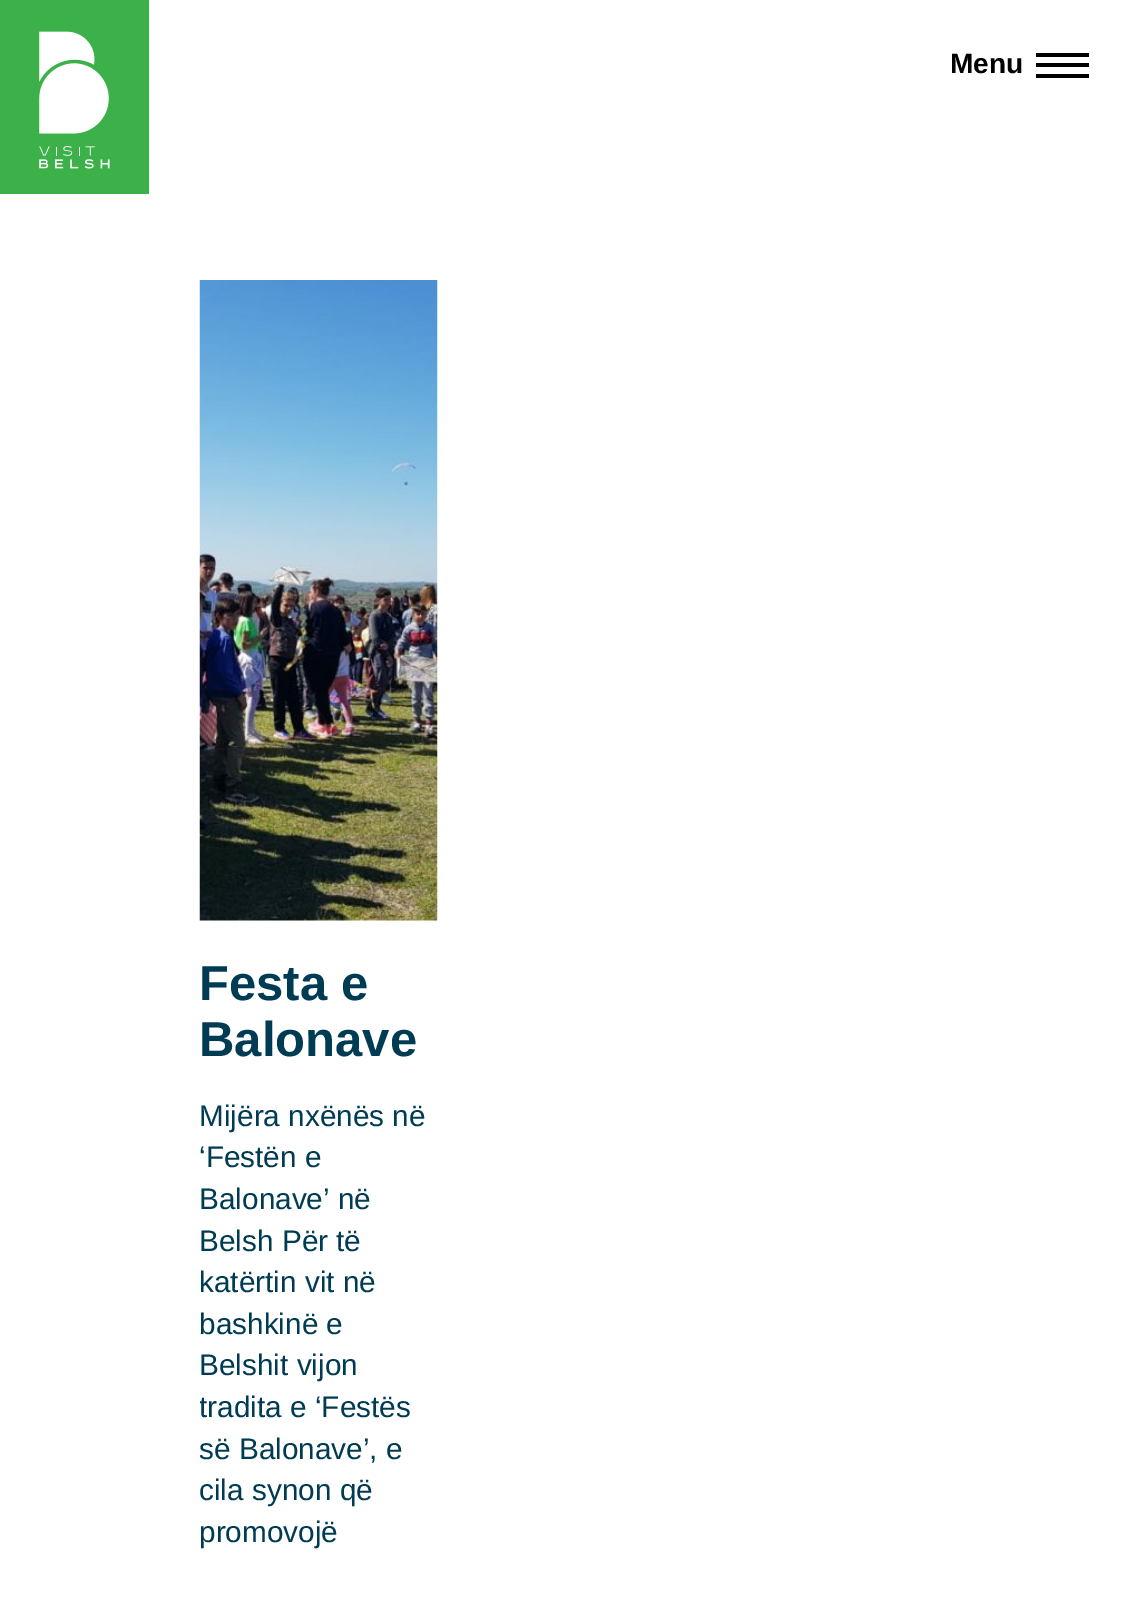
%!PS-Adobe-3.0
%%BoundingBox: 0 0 1138 1612
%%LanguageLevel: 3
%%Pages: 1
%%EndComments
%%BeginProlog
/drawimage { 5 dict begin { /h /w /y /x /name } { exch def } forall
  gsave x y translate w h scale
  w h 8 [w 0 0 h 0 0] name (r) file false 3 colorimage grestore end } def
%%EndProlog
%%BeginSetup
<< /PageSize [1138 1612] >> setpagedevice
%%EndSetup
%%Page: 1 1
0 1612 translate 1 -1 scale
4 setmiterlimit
1 setgray
0 0 1138 1612 rectfill
(images/1.raw) 0 0 149 194 drawimage
0 setgray
1036 53 53 4 rectfill
1036 63 53 4 rectfill
1036 74 53 4 rectfill
(images/2.raw) 199 280 239 641 drawimage
/LiberationSans-Bold [28 0 0 -28 0 0] selectfont
950 73 moveto (Menu) show
/LiberationSans-Bold [49 0 0 -49 0 0] selectfont
0 0.231 0.329 setrgbcolor
199 1000 moveto (Festa e) show
199 1056 moveto (Balonave) show
/LiberationSans-Regular [29.75 0 0 -29.75 0 0] selectfont
199 1126 moveto (Mijëra nxënës në) show
199 1167 moveto (‘Festën e) show
199 1209 moveto (Balonave’ në) show
199 1251 moveto (Belsh Për të) show
199 1292 moveto (katërtin vit në) show
199 1334 moveto (bashkinë e) show
199 1375 moveto (Belshit vijon) show
gsave
200 280 238 1281 rectclip
199 1417 moveto (tradita e ‘Festës) show
grestore
199 1459 moveto (së Balonave’, e) show
199 1500 moveto (cila synon që) show
199 1542 moveto (promovojë) show
showpage
%%EOF
